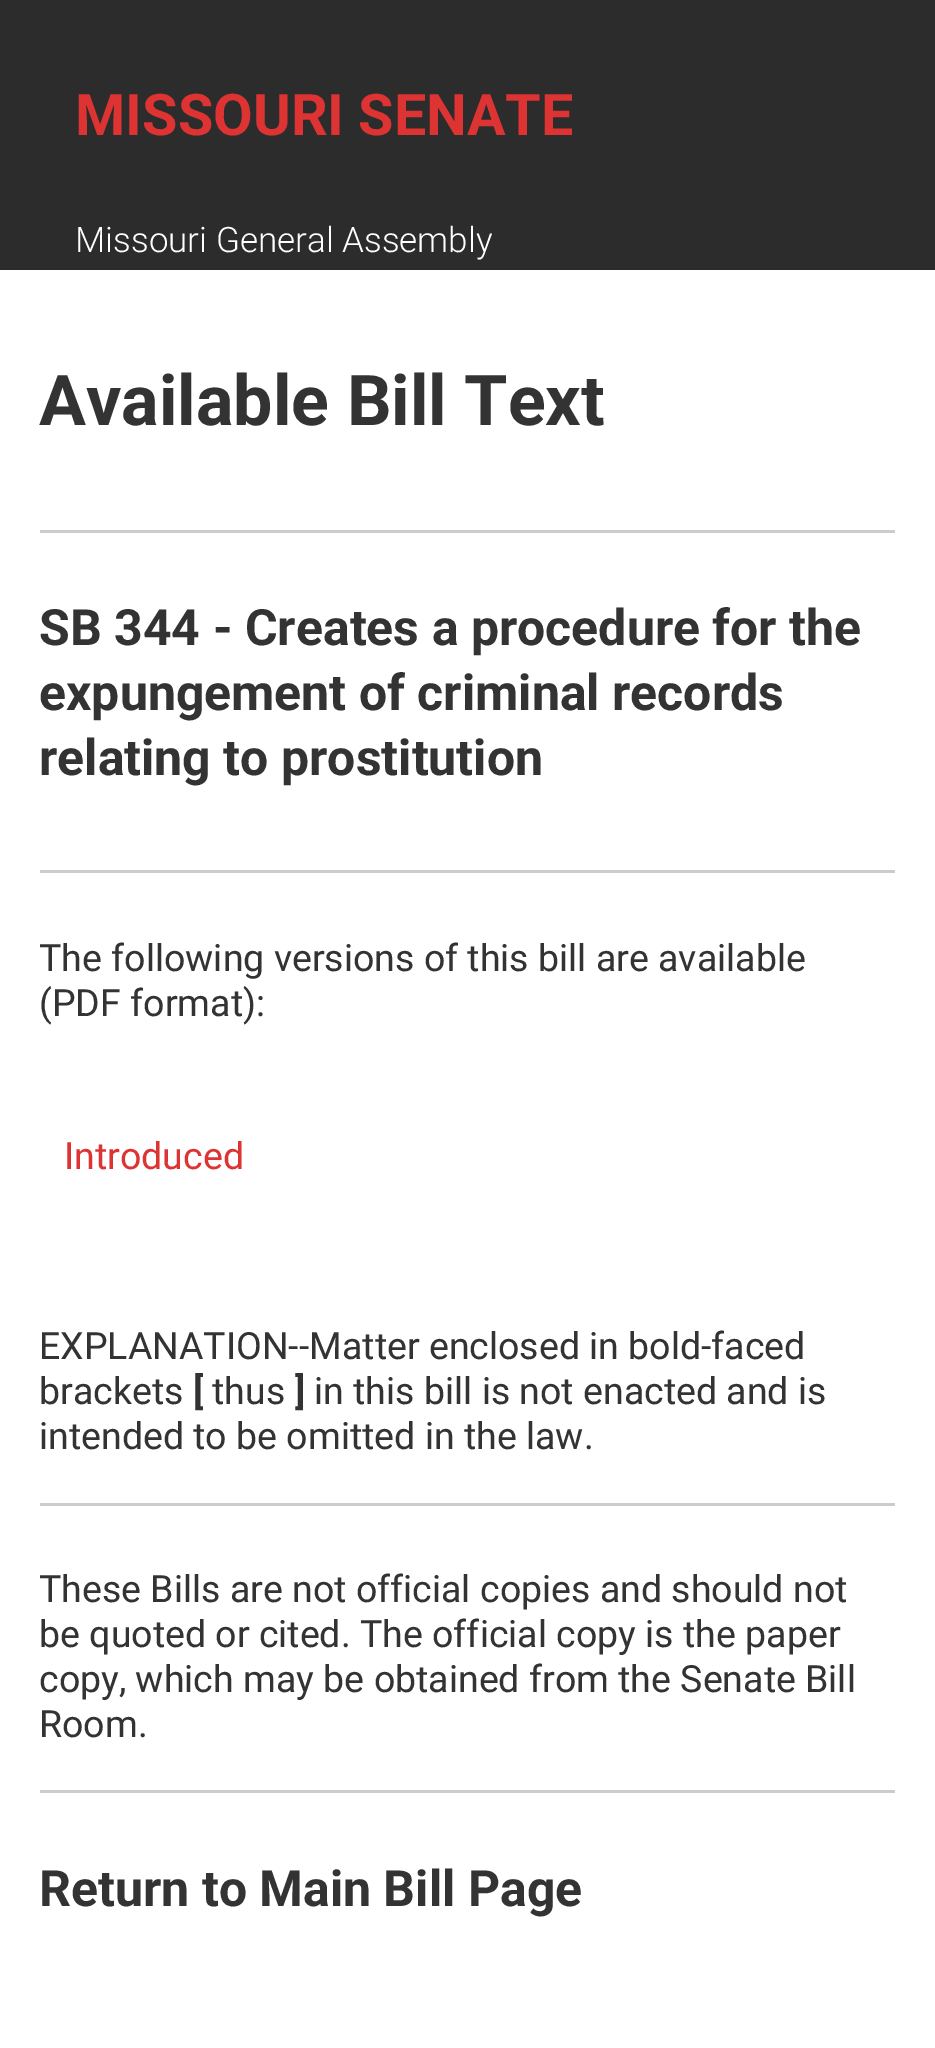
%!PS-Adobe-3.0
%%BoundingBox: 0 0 935 2048
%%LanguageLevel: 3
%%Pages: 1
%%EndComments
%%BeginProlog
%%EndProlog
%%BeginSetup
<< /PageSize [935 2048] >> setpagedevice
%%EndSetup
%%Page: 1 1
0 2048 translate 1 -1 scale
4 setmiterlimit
1 setgray
0 0 935 2048 rectfill
0.173 setgray
0 0 935 270 rectfill
0.8 setgray
40 530 855 3 rectfill
40 870 855 3 rectfill
40 1503 855 3 rectfill
40 1790 855 3 rectfill
/Roboto-Bold [57.5 0 0 -57.5 0 0] selectfont
0.867 0.2 0.2 setrgbcolor
75 135 moveto (MISSOURI SENATE) show
/Roboto-Light [35 0 0 -35 0 0] selectfont
1 setgray
75 252 moveto (Missouri General Assembly) show
/Roboto-Bold [70 0 0 -70 0 0] selectfont
0.2 setgray
39 425 moveto (Available Bill Text) show
/Roboto-Bold [50 0 0 -50 0 0] selectfont
39 645 moveto (SB 344 - Creates a procedure for the) show
39 710 moveto (expungement of criminal records) show
39 775 moveto (relating to prostitution) show
/Roboto-Regular [37.5 0 0 -37.5 0 0] selectfont
39 971 moveto (The following versions of this bill are available) show
39 1016 moveto (\(PDF format\):) show
0.867 0.2 0.2 setrgbcolor
64 1169 moveto (Introduced) show
0.2 setgray
39 1359 moveto (EXPLANATION--Matter enclosed in bold-faced) show
39 1404 moveto (brackets) show
/Roboto-Bold [37.5 0 0 -37.5 0 0] selectfont
193 1404 moveto ([) show
/Roboto-Regular [37.5 0 0 -37.5 0 0] selectfont
212 1404 moveto (thus) show
/Roboto-Bold [37.5 0 0 -37.5 0 0] selectfont
295 1404 moveto (]) show
/Roboto-Regular [37.5 0 0 -37.5 0 0] selectfont
314 1404 moveto (in this bill is not enacted and is) show
39 1449 moveto (intended to be omitted in the law.) show
39 1602 moveto (These Bills are not official copies and should not) show
39 1647 moveto (be quoted or cited. The official copy is the paper) show
39 1692 moveto (copy, which may be obtained from the Senate Bill) show
39 1737 moveto (Room.) show
/Roboto-Bold [50 0 0 -50 0 0] selectfont
39 1906 moveto (Return to Main Bill Page) show
showpage
%%EOF
